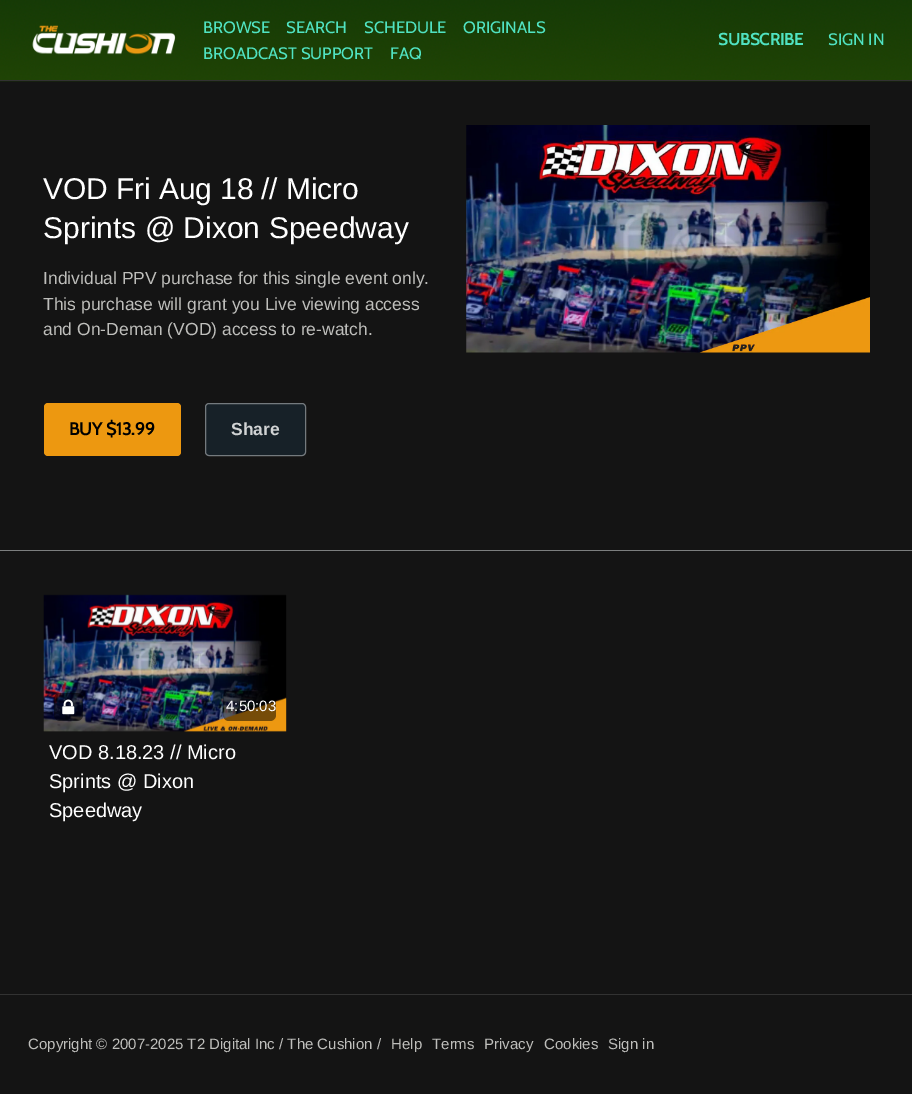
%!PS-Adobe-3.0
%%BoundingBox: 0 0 912 1094
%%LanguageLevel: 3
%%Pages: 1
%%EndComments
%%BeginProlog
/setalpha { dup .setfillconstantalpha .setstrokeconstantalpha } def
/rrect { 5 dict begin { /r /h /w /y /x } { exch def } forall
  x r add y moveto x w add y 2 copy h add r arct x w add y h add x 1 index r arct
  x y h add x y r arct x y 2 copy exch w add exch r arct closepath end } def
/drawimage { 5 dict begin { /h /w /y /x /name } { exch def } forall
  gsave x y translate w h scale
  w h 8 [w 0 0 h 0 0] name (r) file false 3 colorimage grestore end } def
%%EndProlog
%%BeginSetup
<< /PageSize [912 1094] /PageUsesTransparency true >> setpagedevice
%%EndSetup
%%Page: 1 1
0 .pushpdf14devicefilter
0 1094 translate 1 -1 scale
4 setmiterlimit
0.078 setgray
0 0 912 1094 rectfill
(images/1.raw) 0 0 912 82 drawimage
0.196 setgray
0 80 912 1 rectfill
(images/2.raw) 32 25 144 30 drawimage
0.486 0.494 0.498 setrgbcolor
0 550 912 1 rectfill
0.929 0.596 0.063 setrgbcolor
44 403 137 53 4 rrect fill
0.09 0.129 0.157 setrgbcolor
205 403 101 53 4 rrect fill
0.4 setalpha
1 setgray
205.5 403.5 100 52 3.5 rrect stroke
1 setalpha
(images/3.raw) 466 125 404 228 drawimage
(images/4.raw) 43 594 244 138 drawimage
0.5 setalpha
0 setgray
54 693 29 28 6 rrect fill
1 setalpha
(images/5.raw) 62 699 13 16 drawimage
0.5 setalpha
223 691 53 30 6 rrect fill
1 setalpha
0.196 setgray
0 994 912 1 rectfill
/Cabin-Regular [16.6 0 0 -16.6 0 0] selectfont
0.314 0.89 0.761 setrgbcolor
203 33 moveto (BROWSE) show
286 33 moveto (SEARCH) show
364 33 moveto (SCHEDULE) show
463 33 moveto (ORIGINALS) show
203 59 moveto (BROADCAST SUPPORT) show
390 59 moveto (FAQ) show
/Cabin-Bold [16.6 0 0 -16.6 0 0] selectfont
718 45 moveto (SUBSCRIBE) show
/Cabin-Regular [16.6 0 0 -16.6 0 0] selectfont
828 45 moveto (SIGN IN) show
/LiberationSans-Regular [30 0 0 -30 0 0] selectfont
1 setgray
43 199 moveto -0.5 0 32 (VOD Fri Aug 18 // Micro) widthshow
43 238 moveto (Sprints @ Dixon Speedway) show
/LiberationSans-Regular [17.5 0 0 -17.5 0 0] selectfont
0.745 0.745 0.733 setrgbcolor
43 284 moveto -0.25 0 32 (Individual PPV purchase for this single event only.) widthshow
43 310 moveto (This purchase will grant you Live viewing access) show
43 335 moveto (and On-Deman \(VOD\) access to re-watch.) show
/Cabin-Bold [17.5 0 0 -17.5 0 0] selectfont
0 setgray
69 435 moveto (BUY $13.99) show
/LiberationSans-Bold [17.5 0 0 -17.5 0 0] selectfont
0.82 0.827 0.831 setrgbcolor
231 435 moveto (Share) show
/LiberationSans-Regular [15 0 0 -15 0 0] selectfont
1 setgray
226 711 moveto (4:50:03) show
/LiberationSans-Regular [20 0 0 -20 0 0] selectfont
49 759 moveto (VOD 8.18.23 // Micro) show
49 788 moveto (Sprints @ Dixon) show
49 817 moveto (Speedway) show
/LiberationSans-Regular [15 0 0 -15 0 0] selectfont
0.745 0.745 0.733 setrgbcolor
28 1049 moveto (Copyright © 2007-2025 T2 Digital Inc / The Cushion /) show
391 1049 moveto (Help) show
432 1049 moveto (Terms) show
484 1049 moveto (Privacy) show
544 1049 moveto (Cookies) show
608 1049 moveto (Sign in) show
.poppdf14devicefilter showpage
%%EOF
